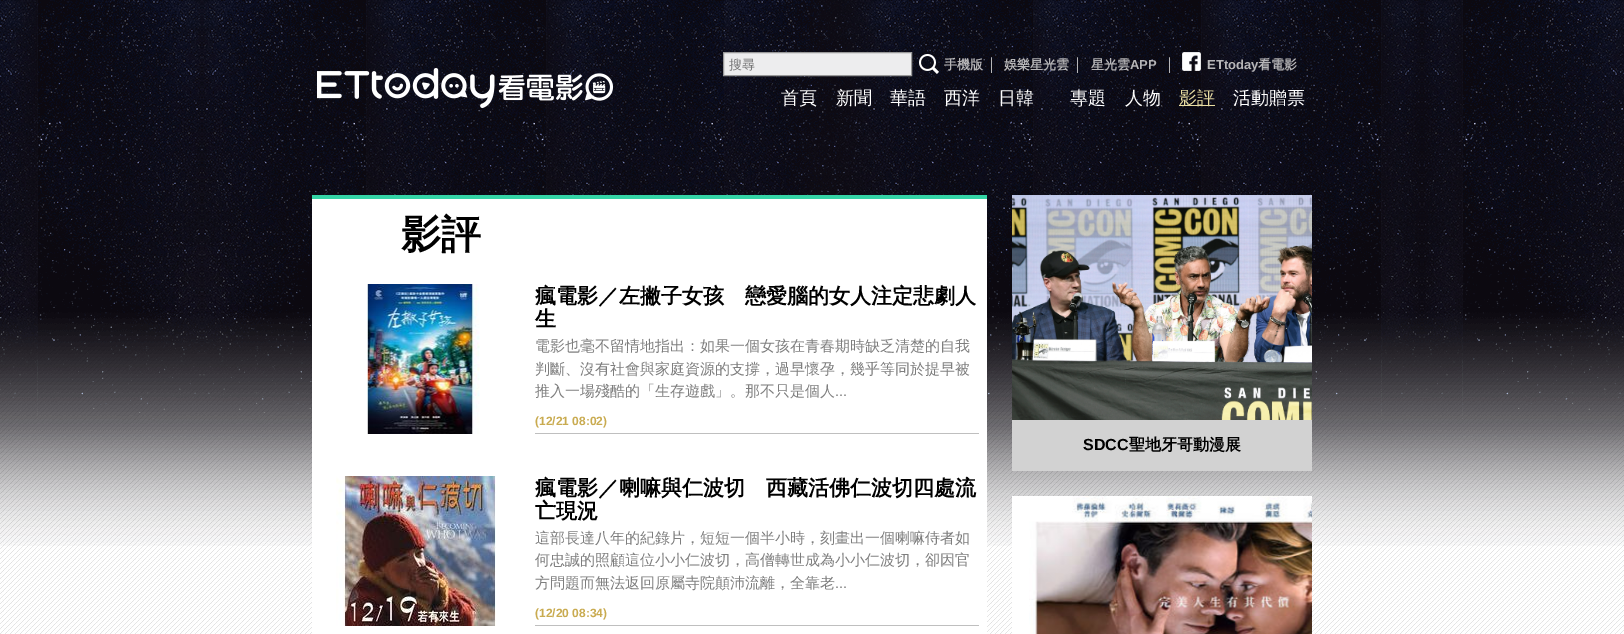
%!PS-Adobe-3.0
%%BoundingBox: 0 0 1624 634
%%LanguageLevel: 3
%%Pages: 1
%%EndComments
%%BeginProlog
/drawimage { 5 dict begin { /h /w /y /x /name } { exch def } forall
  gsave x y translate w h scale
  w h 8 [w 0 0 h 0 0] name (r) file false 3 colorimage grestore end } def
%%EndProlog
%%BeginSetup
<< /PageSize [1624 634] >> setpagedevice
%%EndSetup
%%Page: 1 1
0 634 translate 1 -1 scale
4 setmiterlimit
1 setgray
0 0 1624 634 rectfill
(images/1.raw) 0 83 1624 551 drawimage
(images/2.raw) 0 0 1624 546 drawimage
0.929 0.929 0.933 setrgbcolor
newpath 723.5 52.5 moveto 911.5 52.5 lineto 911.5 75.5 lineto 723.5 75.5 lineto closepath gsave fill grestore
0.6 setgray
stroke
(images/3.raw) 919 54 20 20 drawimage
(images/4.raw) 1182 52 19 19 drawimage
(images/5.raw) 317 68 296 40 drawimage
0.914 0.871 0.639 setrgbcolor
1179 105 36 1 rectfill
1 setgray
312 199 675 435 rectfill
0.204 0.831 0.651 setrgbcolor
312 195 675 4 rectfill
(images/6.raw) 367 284 113 150 drawimage
0.749 setgray
535 433 444 1 rectfill
(images/7.raw) 336 476 160 150 drawimage
535 625 444 1 rectfill
(images/8.raw) 1012 195 300 225 drawimage
0.824 setgray
1012 420 300 51 rectfill
1 setgray
1012 496 17 138 rectfill
(images/9.raw) 1029 496 283 138 drawimage
/WenQuanYiZenHei-Medium [13 0 0 -13 0 0] selectfont
0.459 setgray
729 69 moveto (搜尋) show
/WenQuanYiZenHei-Bold [13 0 0 -13 0 0] selectfont
0.718 0.714 0.722 setrgbcolor
944 69 moveto (手機版) show
/LiberationSans-Bold [13 0 0 -13 0 0] selectfont
988 69 moveto (│) show
/WenQuanYiZenHei-Bold [13 0 0 -13 0 0] selectfont
1004 69 moveto (娛樂星光雲) show
/LiberationSans-Bold [13 0 0 -13 0 0] selectfont
1074 69 moveto (│) show
/WenQuanYiZenHei-Bold [13 0 0 -13 0 0] selectfont
1091 69 moveto (星光雲) show
/LiberationSans-Bold [13 0 0 -13 0 0] selectfont
1130 69 moveto (APP) show
1166 69 moveto (│) show
1207 69 moveto (ETtoday) show
/WenQuanYiZenHei-Bold [13 0 0 -13 0 0] selectfont
1258 69 moveto (看電影) show
/WenQuanYiZenHei-Medium [18 0 0 -18 0 0] selectfont
1 setgray
781 104 moveto (首頁) show
836 104 moveto (新聞) show
890 104 moveto (華語) show
944 104 moveto (西洋) show
998 104 moveto (日韓) show
1070 104 moveto (專題) show
1125 104 moveto (人物) show
0.914 0.871 0.639 setrgbcolor
1179 104 moveto (影評) show
1 setgray
1233 104 moveto (活動贈票) show
/WenQuanYiZenHei-Bold [40 0 0 -40 0 0] selectfont
0 setgray
401 248 moveto (影評) show
/WenQuanYiZenHei-Bold [21 0 0 -21 0 0] selectfont
535 303 moveto (瘋電影／左撇子女孩　戀愛腦的女人注定悲劇人) show
535 326 moveto (生) show
/WenQuanYiZenHei-Medium [15 0 0 -15 0 0] selectfont
0.494 setgray
535 351 moveto (電影也毫不留情地指出：如果一個女孩在青春期時缺乏清楚的自我) show
535 374 moveto (判斷、沒有社會與家庭資源的支撐，過早懷孕，幾乎等同於提早被) show
535 396 moveto (推入一場殘酷的「生存遊戲」。那不只是個人) show
/LiberationSans-Regular [15 0 0 -15 0 0] selectfont
835 396 moveto (...) show
/LiberationSans-Bold [12 0 0 -12 0 0] selectfont
0.788 0.671 0.314 setrgbcolor
535 425 moveto (\(12/21 08:02\)) show
/WenQuanYiZenHei-Bold [21 0 0 -21 0 0] selectfont
0 setgray
535 495 moveto (瘋電影／喇嘛與仁波切　西藏活佛仁波切四處流) show
535 518 moveto (亡現況) show
/WenQuanYiZenHei-Medium [15 0 0 -15 0 0] selectfont
0.494 setgray
535 543 moveto (這部長達八年的紀錄片，短短一個半小時，刻畫出一個喇嘛侍者如) show
535 565 moveto (何忠誠的照顧這位小小仁波切，高僧轉世成為小小仁波切，卻因官) show
535 588 moveto (方問題而無法返回原屬寺院顛沛流離，全靠老) show
/LiberationSans-Regular [15 0 0 -15 0 0] selectfont
835 588 moveto (...) show
/LiberationSans-Bold [12 0 0 -12 0 0] selectfont
0.788 0.671 0.314 setrgbcolor
535 617 moveto (\(12/20 08:34\)) show
/LiberationSans-Bold [16 0 0 -16 0 0] selectfont
0 setgray
1083 450 moveto (SDCC) show
/WenQuanYiZenHei-Bold [16 0 0 -16 0 0] selectfont
1129 450 moveto (聖地牙哥動漫展) show
showpage
%%EOF
